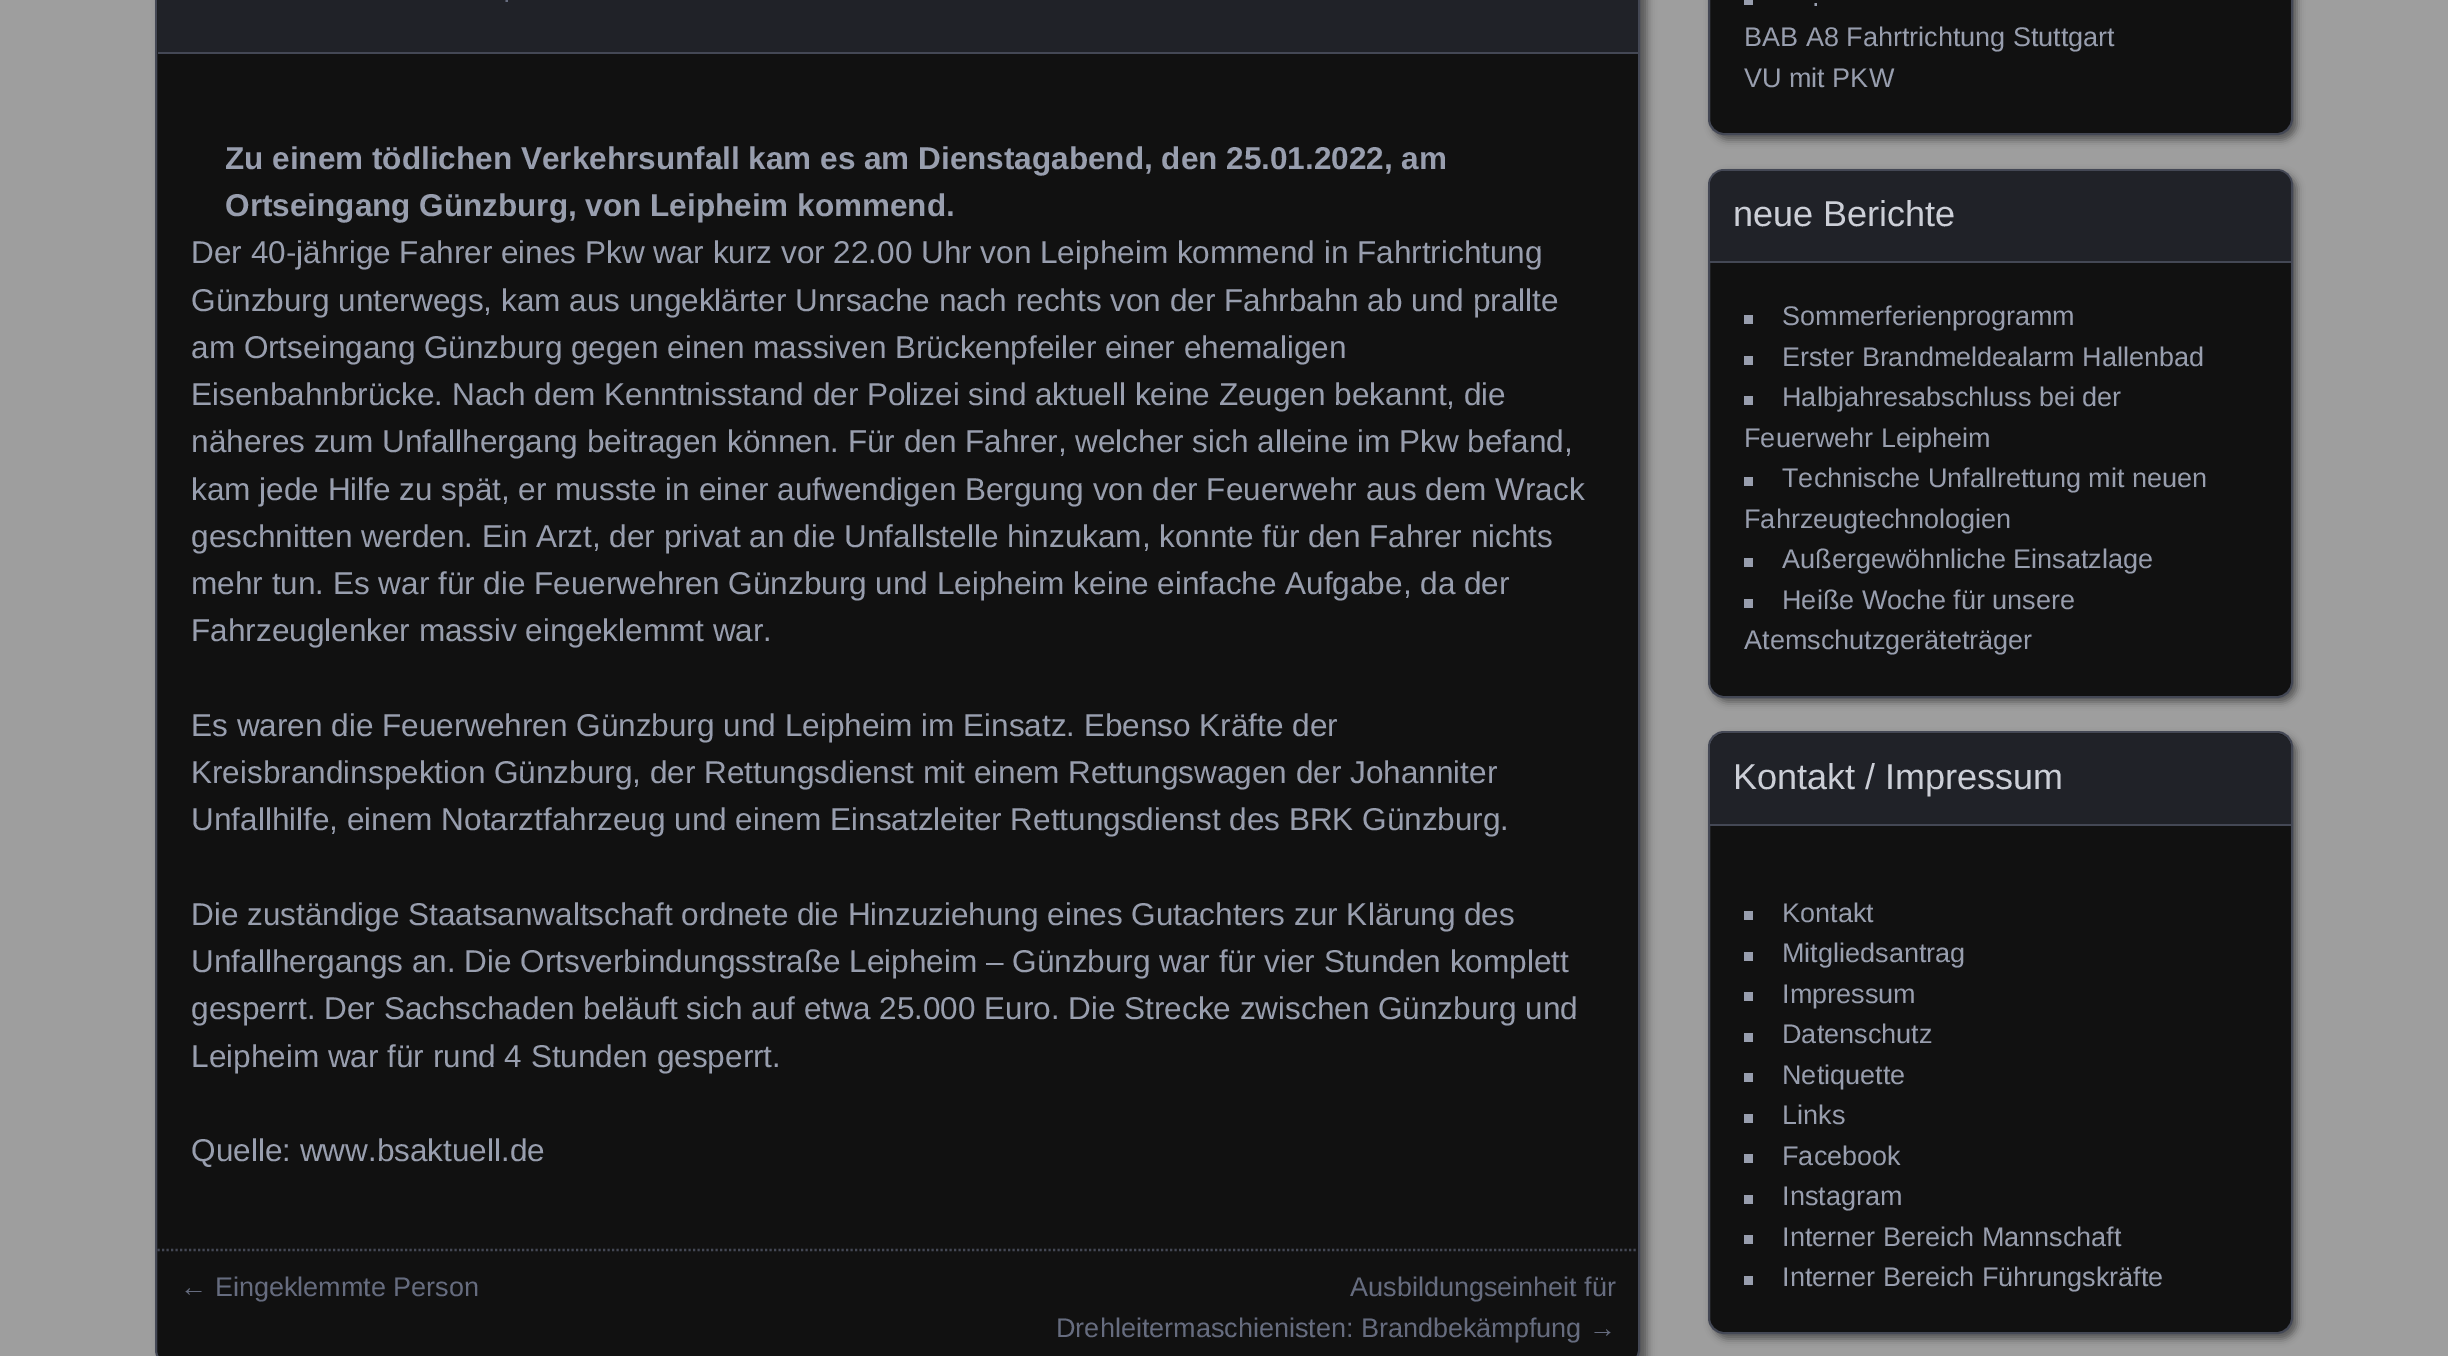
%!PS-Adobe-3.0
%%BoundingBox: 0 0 2448 1356
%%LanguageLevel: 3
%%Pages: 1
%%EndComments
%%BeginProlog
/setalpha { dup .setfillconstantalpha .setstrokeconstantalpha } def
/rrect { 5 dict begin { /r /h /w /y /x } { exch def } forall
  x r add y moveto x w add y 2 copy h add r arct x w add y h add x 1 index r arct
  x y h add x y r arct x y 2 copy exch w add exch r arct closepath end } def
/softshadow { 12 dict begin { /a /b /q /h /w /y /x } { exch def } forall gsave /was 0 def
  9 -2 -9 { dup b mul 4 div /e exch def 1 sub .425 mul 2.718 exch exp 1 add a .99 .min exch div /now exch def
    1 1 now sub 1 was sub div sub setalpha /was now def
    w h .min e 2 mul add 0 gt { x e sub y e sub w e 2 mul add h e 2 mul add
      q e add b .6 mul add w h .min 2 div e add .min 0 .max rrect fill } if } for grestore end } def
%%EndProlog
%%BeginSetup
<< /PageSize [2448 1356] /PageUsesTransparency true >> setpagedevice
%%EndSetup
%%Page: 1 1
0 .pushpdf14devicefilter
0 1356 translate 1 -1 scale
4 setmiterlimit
0.62 setgray
0 0 2448 1356 rectfill
0 setgray
162 -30 1485 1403 16 4.5 0.45 softshadow
0.067 setgray
156 -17 1483 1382 15 rrect gsave fill grestore
0.267 0.282 0.333 setrgbcolor
2 setlinewidth
stroke
0.125 0.133 0.157 setrgbcolor
158 0 1480 52 rectfill
0.267 0.282 0.333 setrgbcolor
158 52 1480 2 rectfill
2.2 setlinewidth
[2.25 2.25] 0 setdash
newpath 157.5 1250 moveto 1638 1250 lineto stroke
0 setgray
1712 -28 585 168 16 4 0.45 softshadow
0.067 setgray
1709 -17 583 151 15 rrect gsave fill grestore
0.267 0.282 0.333 setrgbcolor
2 setlinewidth
[] 0 setdash
stroke
0.596 0.62 0.682 setrgbcolor
1744 0 9 5 rectfill
0 setgray
1712 173 585 529 16 4 0.45 softshadow
0.067 setgray
1709 170 583 527 15 rrect gsave fill grestore
0.267 0.282 0.333 setrgbcolor
stroke
0.125 0.133 0.157 setrgbcolor
newpath 1724 171 moveto 2277 171 lineto 2284.5 171 2291 177.5 2291 185 curveto 2291 263 lineto 1710 263 lineto 1710 185 lineto 1710 177.5 1716.5 171 1724 171 curveto closepath fill
0.267 0.282 0.333 setrgbcolor
1710 261 581 2 rectfill
0.596 0.62 0.682 setrgbcolor
1744 315 9 9 rectfill
1744 356 9 9 rectfill
1744 396 9 9 rectfill
1744 477 9 9 rectfill
1744 558 9 9 rectfill
1744 599 9 9 rectfill
0 setgray
1712 736 585 603 16 4 0.45 softshadow
0.067 setgray
1709 732 583 601 15 rrect gsave fill grestore
0.267 0.282 0.333 setrgbcolor
stroke
0.125 0.133 0.157 setrgbcolor
newpath 1724 734 moveto 2277 734 lineto 2284.5 734 2291 740.5 2291 748 curveto 2291 826 lineto 1710 826 lineto 1710 748 lineto 1710 740.5 1716.5 734 1724 734 curveto closepath fill
0.267 0.282 0.333 setrgbcolor
1710 824 581 2 rectfill
0.596 0.62 0.682 setrgbcolor
1744 911 9 9 rectfill
1744 952 9 9 rectfill
1744 992 9 9 rectfill
1744 1033 9 9 rectfill
1744 1073 9 9 rectfill
1744 1114 9 9 rectfill
1744 1154 9 9 rectfill
1744 1195 9 9 rectfill
1744 1235 9 9 rectfill
1744 1276 9 9 rectfill
/LiberationSans-Regular [27 0 0 -27 0 0] selectfont
0.4 0.424 0.498 setrgbcolor
503 2 moveto (.) show
/LiberationSans-Bold [31.5 0 0 -31.5 0 0] selectfont
0.596 0.62 0.682 setrgbcolor
225 169 moveto (Zu einem tödlichen Verkehrsunfall kam es am Dienstagabend, den 25.01.2022, am) show
225 216 moveto (Ortseingang Günzburg, von Leipheim kommend.) show
/LiberationSans-Regular [31.5 0 0 -31.5 0 0] selectfont
191 263 moveto (Der 40-jährige Fahrer eines Pkw war kurz vor 22.00 Uhr von Leipheim kommend in Fahrtrichtung) show
191 311 moveto (Günzburg unterwegs, kam aus ungeklärter Unrsache nach rechts von der Fahrbahn ab und prallte) show
191 358 moveto (am Ortseingang Günzburg gegen einen massiven Brückenpfeiler einer ehemaligen) show
191 405 moveto (Eisenbahnbrücke. Nach dem Kenntnisstand der Polizei sind aktuell keine Zeugen bekannt, die) show
191 452 moveto (näheres zum Unfallhergang beitragen können. Für den Fahrer, welcher sich alleine im Pkw befand,) show
191 500 moveto (kam jede Hilfe zu spät, er musste in einer aufwendigen Bergung von der Feuerwehr aus dem Wrack) show
191 547 moveto (geschnitten werden. Ein Arzt, der privat an die Unfallstelle hinzukam, konnte für den Fahrer nichts) show
191 594 moveto (mehr tun. Es war für die Feuerwehren Günzburg und Leipheim keine einfache Aufgabe, da der) show
191 641 moveto (Fahrzeuglenker massiv eingeklemmt war.) show
191 736 moveto (Es waren die Feuerwehren Günzburg und Leipheim im Einsatz. Ebenso Kräfte der) show
191 783 moveto (Kreisbrandinspektion Günzburg, der Rettungsdienst mit einem Rettungswagen der Johanniter) show
191 830 moveto (Unfallhilfe, einem Notarztfahrzeug und einem Einsatzleiter Rettungsdienst des BRK Günzburg.) show
191 925 moveto (Die zuständige Staatsanwaltschaft ordnete die Hinzuziehung eines Gutachters zur Klärung des) show
191 972 moveto (Unfallhergangs an. Die Ortsverbindungsstraße Leipheim – Günzburg war für vier Stunden komplett) show
191 1019 moveto (gesperrt. Der Sachschaden beläuft sich auf etwa 25.000 Euro. Die Strecke zwischen Günzburg und) show
191 1067 moveto (Leipheim war für rund 4 Stunden gesperrt.) show
191 1161 moveto (Quelle: www.bsaktuell.de) show
/LiberationSans-Regular [27 0 0 -27 0 0] selectfont
0.4 0.424 0.498 setrgbcolor
180 1296 moveto (← Eingeklemmte Person) show
1350 1296 moveto (Ausbildungseinheit für) show
1056 1337 moveto (Drehleitermaschienisten: Brandbekämpfung →) show
0.596 0.62 0.682 setrgbcolor
1812 6 moveto (.) show
1744 46 moveto (BAB A8 Fahrtrichtung Stuttgart) show
1744 87 moveto (VU mit PKW) show
/LiberationSans-Regular [36 0 0 -36 0 0] selectfont
0.8 0.812 0.843 setrgbcolor
1733 226 moveto (neue Berichte) show
/LiberationSans-Regular [27 0 0 -27 0 0] selectfont
0.596 0.62 0.682 setrgbcolor
1782 325 moveto (Sommerferienprogramm) show
1782 366 moveto (Erster Brandmeldealarm Hallenbad) show
1782 406 moveto (Halbjahresabschluss bei der) show
1744 447 moveto (Feuerwehr Leipheim) show
1782 487 moveto (Technische Unfallrettung mit neuen) show
1744 528 moveto (Fahrzeugtechnologien) show
1782 568 moveto (Außergewöhnliche Einsatzlage) show
1782 609 moveto (Heiße Woche für unsere) show
1744 649 moveto (Atemschutzgeräteträger) show
/LiberationSans-Regular [36 0 0 -36 0 0] selectfont
0.8 0.812 0.843 setrgbcolor
1733 789 moveto (Kontakt / Impressum) show
/LiberationSans-Regular [27 0 0 -27 0 0] selectfont
0.596 0.62 0.682 setrgbcolor
1782 922 moveto (Kontakt) show
1782 962 moveto (Mitgliedsantrag) show
1782 1003 moveto (Impressum) show
1782 1043 moveto (Datenschutz) show
1782 1084 moveto (Netiquette) show
1782 1124 moveto (Links) show
1782 1165 moveto (Facebook) show
1782 1205 moveto (Instagram) show
1782 1246 moveto (Interner Bereich Mannschaft) show
1782 1286 moveto (Interner Bereich Führungskräfte) show
.poppdf14devicefilter showpage
%%EOF
